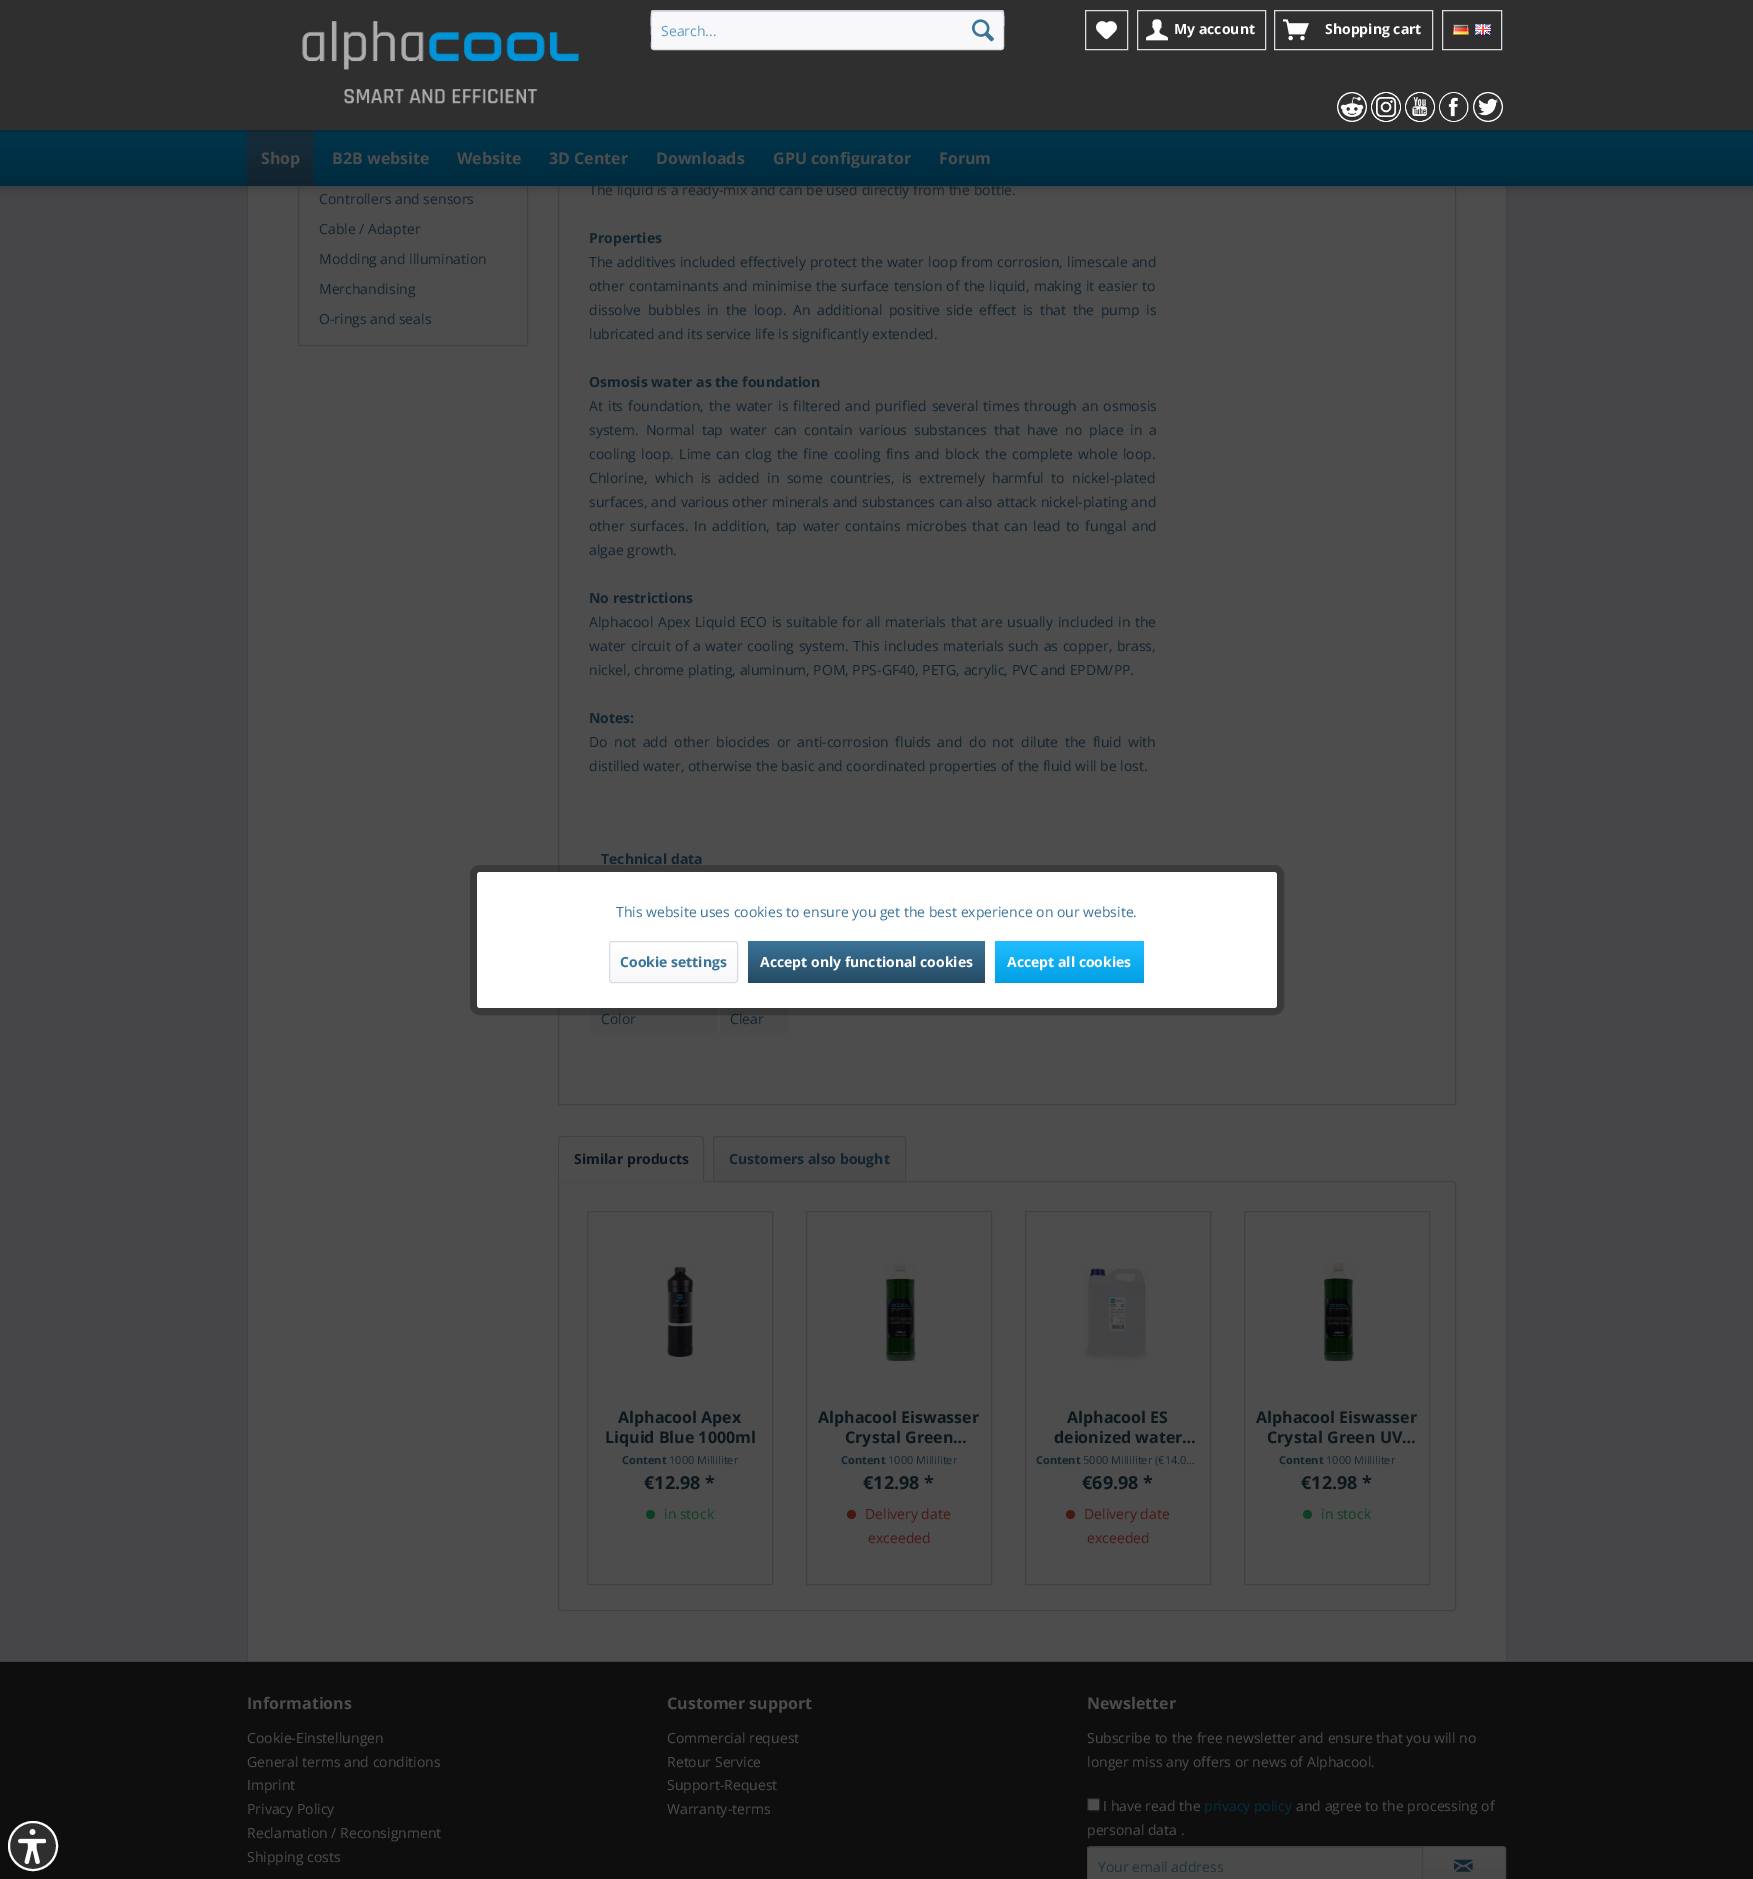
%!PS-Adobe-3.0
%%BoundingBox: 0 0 1753 1879
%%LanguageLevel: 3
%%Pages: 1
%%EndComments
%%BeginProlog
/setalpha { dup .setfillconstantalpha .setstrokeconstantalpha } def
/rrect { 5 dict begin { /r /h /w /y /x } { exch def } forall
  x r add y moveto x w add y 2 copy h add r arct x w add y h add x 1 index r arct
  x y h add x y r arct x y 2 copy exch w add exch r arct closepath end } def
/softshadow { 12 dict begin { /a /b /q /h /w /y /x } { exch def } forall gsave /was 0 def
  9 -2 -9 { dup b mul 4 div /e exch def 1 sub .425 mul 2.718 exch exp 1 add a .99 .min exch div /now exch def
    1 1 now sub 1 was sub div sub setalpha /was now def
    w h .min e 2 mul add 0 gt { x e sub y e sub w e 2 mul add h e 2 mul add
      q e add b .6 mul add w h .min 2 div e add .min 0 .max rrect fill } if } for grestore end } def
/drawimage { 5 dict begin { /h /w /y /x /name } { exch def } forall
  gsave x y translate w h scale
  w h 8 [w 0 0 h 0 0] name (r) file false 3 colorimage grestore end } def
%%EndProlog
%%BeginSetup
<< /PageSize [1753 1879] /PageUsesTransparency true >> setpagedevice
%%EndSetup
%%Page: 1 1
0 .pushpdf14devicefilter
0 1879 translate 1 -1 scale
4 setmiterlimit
0.275 0.275 0.282 setrgbcolor
0 0 1753 1879 rectfill
0.302 setgray
248 186 1258 1475 rectfill
0.255 0.255 0.271 setrgbcolor
1506 186 1 1475 rectfill
247 186 1 1475 rectfill
298.5 -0.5 229 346 rectstroke
558.5 23.5 897 1081 rectstroke
0 setgray
0 130 1753 56 0 5 0.3 softshadow
0.29 setgray
591 1008 126 25 rectfill
720 1008 68 25 rectfill
0.255 0.255 0.271 setrgbcolor
558.5 1181.5 897 429 2.5 rrect stroke
0.302 setgray
newpath 561 1136 moveto 701 1136 lineto 702.5 1136 704 1137.5 704 1139 curveto 704 1182 lineto 558 1182 lineto 558 1139 lineto 558 1137.5 559.5 1136 561 1136 curveto closepath fill
0.255 0.255 0.271 setrgbcolor
newpath 561 1136 moveto 559 1137 lineto 560 1138 lineto 561 1136 605 1137 608 1137 curveto 701 1137 lineto 702 1138 lineto 703 1137 lineto 701 1136 lineto closepath fill
newpath 704 1182 moveto 704 1177 705 1139 703 1137 curveto 702 1138 lineto 704 1139 703 1176 703 1181 curveto closepath fill
0.302 setgray
newpath 704 1182 moveto 703 1181 lineto 559 1181 lineto 558 1182 lineto closepath fill
0.255 0.255 0.271 setrgbcolor
newpath 558 1182 moveto 559 1181 lineto 559 1176 558 1139 560 1138 curveto 559 1137 lineto 558 1139 lineto closepath fill
gsave newpath 716 1137 moveto 903 1137 lineto 904 1137 905 1138 905 1139 curveto 905 1181 lineto 714 1181 lineto 714 1139 lineto 714 1138 715 1137 716 1137 curveto closepath clip newpath
<< /ShadingType 2 /ColorSpace /DeviceRGB /Coords [810 1137 810 1181] /Extend [true true] /Function << /FunctionType 2 /Domain [0 1] /C0 [0.302 0.302 0.302] /C1 [0.29 0.29 0.294] /N 1 >> >> shfill grestore
newpath 716 1136.5 moveto 903 1136.5 lineto 904.5 1136.5 905.5 1137.5 905.5 1139 curveto 905.5 1181.5 lineto 713.5 1181.5 lineto 713.5 1139 lineto 713.5 1137.5 714.5 1136.5 716 1136.5 curveto closepath stroke
587.5 1211.5 185 373 rectstroke
(images/13.raw) 667 1266 27 91 drawimage
0.055 0.239 0.133 setrgbcolor
newpath 650.5 1514.5 4.5 0 360 arc closepath fill
0.255 0.255 0.271 setrgbcolor
806.5 1211.5 185 373 rectstroke
(images/14.raw) 885 1263 31 99 drawimage
0.271 0.09 0.071 setrgbcolor
newpath 851.5 1514.5 4.5 0 360 arc closepath fill
0.255 0.255 0.271 setrgbcolor
1025.5 1211.5 185 373 rectstroke
(images/15.raw) 1084 1267 64 94 drawimage
0.271 0.09 0.071 setrgbcolor
newpath 1070.5 1514.5 4.5 0 360 arc closepath fill
0.255 0.255 0.271 setrgbcolor
1244.5 1211.5 185 373 rectstroke
(images/16.raw) 1324 1262 30 100 drawimage
0.055 0.239 0.133 setrgbcolor
newpath 1307.5 1514.5 4.5 0 360 arc closepath fill
0.055 setgray
0 1662 1753 217 rectfill
0.255 0.255 0.271 setrgbcolor
0 1661 1753 1 rectfill
0.302 setgray
1087.5 1798.5 12 12 1.5 rrect gsave fill grestore
0.137 setgray
stroke
0.29 0.29 0.294 setrgbcolor
newpath 1090 1847 moveto 1422 1847 lineto 1422 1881 lineto 1090 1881 lineto 1089 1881 1088 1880 1088 1879 curveto 1088 1849 lineto 1088 1848 1089 1847 1090 1847 curveto closepath fill
0.255 0.255 0.271 setrgbcolor
newpath 1090 1848 moveto 1422 1848 lineto 1422 1847 lineto 1089 1847 lineto 1088 1848 lineto 1088 1850 lineto 1088 1849 1089 1848 1090 1848 curveto closepath fill
0.239 0.239 0.259 setrgbcolor
newpath 1090 1846 moveto 1088 1847 lineto 1089 1848 lineto 1090 1847 lineto 1422 1847 lineto 1423 1846 lineto closepath fill
0.255 0.255 0.271 setrgbcolor
newpath 1087 1849 moveto 1087 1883 lineto 1087 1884 1087 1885 1088 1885 curveto 1088.5 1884.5 lineto 1088 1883 lineto 1088 1849 lineto 1088.5 1847.5 lineto 1088 1847 lineto 1087 1847 1087 1848 1087 1849 curveto closepath fill
gsave newpath 1423 1847 moveto 1503 1847 lineto 1504 1847 1505 1848 1505 1849 curveto 1505 1879 lineto 1505 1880 1504 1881 1503 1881 curveto 1423 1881 lineto closepath clip newpath
<< /ShadingType 2 /ColorSpace /DeviceRGB /Coords [1464 1847 1464 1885] /Extend [true true] /Function << /FunctionType 2 /Domain [0 1] /C0 [0.302 0.302 0.302] /C1 [0.29 0.29 0.294] /N 1 >> >> shfill grestore
newpath 1422.5 1846.5 moveto 1503 1846.5 lineto 1504.5 1846.5 1505.5 1847.5 1505.5 1849 curveto 1505.5 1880 lineto 1505.5 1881.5 1504.5 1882.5 1503 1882.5 curveto 1422.5 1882.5 lineto closepath stroke
(images/17.raw) 1454 1859 19 13 drawimage
0.184 setgray
newpath 33 1846 23 0 360 arc closepath fill
(images/18.raw) 18 1829 28 35 drawimage
1 setgray
2 setlinewidth
newpath 33 1846 24 0 360 arc closepath stroke
/OpenSans-Regular [14 0 0 -14 0 0] selectfont
0.067 0.137 0.18 setrgbcolor
319 204 moveto (Controllers and sensors) show
319 234 moveto (Cable / Adapter) show
319 264 moveto (Modding and illumination) show
319 294 moveto (Merchandising) show
319 324 moveto (O-rings and seals) show
589 195 moveto (The liquid is a ready-mix and can be used directly from the bottle.) show
gsave newpath 0 130 moveto 1753 130 lineto 1753 186 lineto 0 186 lineto closepath clip newpath
<< /ShadingType 2 /ColorSpace /DeviceRGB /Coords [877 130 877 186] /Extend [true true] /Function << /FunctionType 2 /Domain [0 1] /C0 [0 0.208 0.298] /C1 [0 0.165 0.239] /N 1 >> >> shfill grestore
gsave newpath 247 130 moveto 314 130 lineto 314 186 lineto 247 186 lineto closepath clip newpath
<< /ShadingType 2 /ColorSpace /DeviceRGB /Coords [281 130 281 186] /Extend [true true] /Function << /FunctionType 2 /Domain [0 1] /C0 [0.09 0.176 0.231] /C1 [0.067 0.137 0.18] /N 1 >> >> shfill grestore
0 setgray
0 0 1753 130 0 5 0.3 softshadow
0.184 setgray
0 0 1753 130 rectfill
0.973 0.973 0.98 setrgbcolor
651 10 353 40 3 rrect fill
0.855 0.855 0.898 setrgbcolor
newpath 654 12 moveto 1001 12 lineto 1002 12 1003 13 1003 14 curveto 1003 13 1003 11 1001 11 curveto 654 11 lineto 652 11 652 13 652 14 curveto 652 13 653 12 654 12 curveto closepath fill
0.796 0.796 0.859 setrgbcolor
1 setlinewidth
newpath 652 11 moveto 654 10.5 lineto 1001 10.5 lineto 1003 11 lineto stroke
0.855 0.855 0.898 setrgbcolor
newpath 1003 11 moveto 1004.5 13 1003.5 32 1003.5 35.5 curveto 1003.5 41.5 lineto 1003.5 43 1005 49.5 1001 49.5 curveto 654 49.5 lineto 650 49.5 651.5 43 651.5 41.5 curveto 651.5 35.5 lineto 651.5 32 650.5 13 652 11 curveto stroke
(images/2.raw) 972 19 22 23 drawimage
0.369 0.608 0.761 setrgbcolor
661 36 moveto (Search...) show
0.855 0.855 0.898 setrgbcolor
1442.5 10.5 59 39 rectstroke
(images/7.raw) 1475 24 16 11 drawimage
(images/6.raw) 1453 24 16 11 drawimage
1274.5 10.5 158 39 rectstroke
(images/5.raw) 1283 19 26 22 drawimage
/OpenSans-Bold [14 0 0 -14 0 0] selectfont
1 setgray
1325 34 moveto (Shopping cart) show
0.855 0.855 0.898 setrgbcolor
1137.5 10.5 128 39 rectstroke
(images/4.raw) 1146 19 22 22 drawimage
1 setgray
1174 34 moveto (My account) show
0.855 0.855 0.898 setrgbcolor
1085.5 10.5 42 39 rectstroke
(images/3.raw) 1096 21 21 19 drawimage
(images/8.raw) 1337 92 30 30 drawimage
(images/9.raw) 1371 92 30 30 drawimage
(images/10.raw) 1405 92 30 30 drawimage
(images/11.raw) 1439 92 30 30 drawimage
(images/12.raw) 1473 92 30 30 drawimage
(images/1.raw) 302 21 277 83 drawimage
/OpenSans-Bold [16 0 0 -16 0 0] selectfont
0.302 setgray
939 164 moveto (Forum) show
773 164 moveto (GPU configurator) show
656 164 moveto (Downloads) show
549 164 moveto (3D Center) show
457 164 moveto (Website) show
332 164 moveto (B2B website) show
261 164 moveto (Shop) show
/OpenSans-Bold [14 0 0 -14 0 0] selectfont
0.067 0.137 0.18 setrgbcolor
589 243 moveto (Properties) show
/OpenSans-Regular [14 0 0 -14 0 0] selectfont
589 267 moveto 0.5 0 32 (The additives included effectively protect the water loop from corrosion, limescale and) widthshow
589 291 moveto 0.6 0 32 (other contaminants and minimise the surface tension of the liquid, making it easier to) widthshow
589 315 moveto 3 0 32 (dissolve bubbles in the loop. An additional positive side effect is that the pump is) widthshow
589 339 moveto (lubricated and its service life is significantly extended.) show
/OpenSans-Bold [14 0 0 -14 0 0] selectfont
589 387 moveto (Osmosis water as the foundation) show
/OpenSans-Regular [14 0 0 -14 0 0] selectfont
589 411 moveto 1.5 0 32 (At its foundation, the water is filtered and purified several times through an osmosis) widthshow
589 435 moveto 3.25 0 32 (system. Normal tap water can contain various substances that have no place in a) widthshow
589 459 moveto 1.8 0 32 (cooling loop. Lime can clog the fine cooling fins and block the complete whole loop.) widthshow
589 483 moveto 3.75 0 32 (Chlorine, which is added in some countries, is extremely harmful to nickel-plated) widthshow
589 507 moveto 0.5 0 32 (surfaces, and various other minerals and substances can also attack nickel-plating and) widthshow
589 531 moveto 2 0 32 (other surfaces. In addition, tap water contains microbes that can lead to fungal and) widthshow
589 555 moveto (algae growth.) show
/OpenSans-Bold [14 0 0 -14 0 0] selectfont
589 603 moveto (No restrictions) show
/OpenSans-Regular [14 0 0 -14 0 0] selectfont
589 627 moveto 0.9 0 32 (Alphacool Apex Liquid ECO is suitable for all materials that are usually included in the) widthshow
589 651 moveto 1 0 32 (water circuit of a water cooling system. This includes materials such as copper, brass,) widthshow
589 675 moveto (nickel, chrome plating, aluminum, POM, PPS-GF40, PETG, acrylic, PVC and EPDM/PP.) show
/OpenSans-Bold [14 0 0 -14 0 0] selectfont
589 723 moveto (Notes:) show
/OpenSans-Regular [14 0 0 -14 0 0] selectfont
589 747 moveto 2.9 0 32 (Do not add other biocides or anti-corrosion fluids and do not dilute the fluid with) widthshow
589 771 moveto (distilled water, otherwise the basic and coordinated properties of the fluid will be lost.) show
/OpenSans-Bold [14 0 0 -14 0 0] selectfont
601 864 moveto (Technical data) show
/OpenSans-Regular [14 0 0 -14 0 0] selectfont
601 1024 moveto (Color) show
730 1024 moveto (Clear) show
/OpenSans-Bold [14 0 0 -14 0 0] selectfont
0.043 0.086 0.114 setrgbcolor
574 1164 moveto (Similar products) show
0.067 0.137 0.18 setrgbcolor
729 1164 moveto (Customers also bought) show
/OpenSans-Bold [16 0 0 -16 0 0] selectfont
0.043 0.086 0.114 setrgbcolor
618 1423 moveto (Alphacool Apex) show
605 1443 moveto (Liquid Blue 1000ml) show
/OpenSans-Bold [11 0 0 -11 0 0] selectfont
0.067 0.137 0.18 setrgbcolor
622 1464 moveto (Content) show
/OpenSans-Regular [11 0 0 -11 0 0] selectfont
669 1464 moveto (1000 Milliliter) show
/OpenSans-Bold [18 0 0 -18 0 0] selectfont
0.043 0.086 0.114 setrgbcolor
644 1489 moveto (€12.98 *) show
/OpenSans-Regular [14 0 0 -14 0 0] selectfont
0.055 0.239 0.133 setrgbcolor
664 1519 moveto (in stock) show
/OpenSans-Bold [16 0 0 -16 0 0] selectfont
0.043 0.086 0.114 setrgbcolor
818 1423 moveto (Alphacool Eiswasser) show
845 1443 moveto (Crystal Green…) show
/OpenSans-Bold [11 0 0 -11 0 0] selectfont
0.067 0.137 0.18 setrgbcolor
841 1464 moveto (Content) show
/OpenSans-Regular [11 0 0 -11 0 0] selectfont
888 1464 moveto (1000 Milliliter) show
/OpenSans-Bold [18 0 0 -18 0 0] selectfont
0.043 0.086 0.114 setrgbcolor
863 1489 moveto (€12.98 *) show
/OpenSans-Regular [14 0 0 -14 0 0] selectfont
0.271 0.09 0.071 setrgbcolor
865 1519 moveto (Delivery date) show
868 1543 moveto (exceeded) show
/OpenSans-Bold [16 0 0 -16 0 0] selectfont
0.043 0.086 0.114 setrgbcolor
1067 1423 moveto (Alphacool ES) show
1054 1443 moveto (deionized water…) show
/OpenSans-Bold [11 0 0 -11 0 0] selectfont
0.067 0.137 0.18 setrgbcolor
1036 1464 moveto (Content) show
/OpenSans-Regular [11 0 0 -11 0 0] selectfont
1083 1464 moveto (5000 Milliliter \(€14.0…) show
/OpenSans-Bold [18 0 0 -18 0 0] selectfont
0.043 0.086 0.114 setrgbcolor
1082 1489 moveto (€69.98 *) show
/OpenSans-Regular [14 0 0 -14 0 0] selectfont
0.271 0.09 0.071 setrgbcolor
1084 1519 moveto (Delivery date) show
1087 1543 moveto (exceeded) show
/OpenSans-Bold [16 0 0 -16 0 0] selectfont
0.043 0.086 0.114 setrgbcolor
1256 1423 moveto (Alphacool Eiswasser) show
1267 1443 moveto (Crystal Green UV…) show
/OpenSans-Bold [11 0 0 -11 0 0] selectfont
0.067 0.137 0.18 setrgbcolor
1279 1464 moveto (Content) show
/OpenSans-Regular [11 0 0 -11 0 0] selectfont
1326 1464 moveto (1000 Milliliter) show
/OpenSans-Bold [18 0 0 -18 0 0] selectfont
0.043 0.086 0.114 setrgbcolor
1301 1489 moveto (€12.98 *) show
/OpenSans-Regular [14 0 0 -14 0 0] selectfont
0.055 0.239 0.133 setrgbcolor
1321 1519 moveto (in stock) show
/OpenSans-Bold [16 0 0 -16 0 0] selectfont
0.302 setgray
247 1709 moveto (Informations) show
/OpenSans-Regular [14 0 0 -14 0 0] selectfont
247 1743 moveto (Cookie-Einstellungen) show
247 1767 moveto (General terms and conditions) show
247 1790 moveto (Imprint) show
247 1814 moveto (Privacy Policy) show
247 1838 moveto (Reclamation / Reconsignment) show
247 1862 moveto (Shipping costs) show
/OpenSans-Bold [16 0 0 -16 0 0] selectfont
667 1709 moveto (Customer support) show
/OpenSans-Regular [14 0 0 -14 0 0] selectfont
667 1743 moveto (Commercial request) show
667 1767 moveto (Retour Service) show
667 1790 moveto (Support-Request) show
667 1814 moveto (Warranty-terms) show
/OpenSans-Bold [16 0 0 -16 0 0] selectfont
1087 1709 moveto (Newsletter) show
/OpenSans-Regular [14 0 0 -14 0 0] selectfont
1087 1743 moveto (Subscribe to the free newsletter and ensure that you will no) show
1087 1767 moveto (longer miss any offers or news of Alphacool.) show
1103 1811 moveto (I have read the) show
0 0.188 0.267 setrgbcolor
1204 1811 moveto (privacy policy) show
0.302 setgray
1296 1811 moveto (and agree to the processing of) show
1087 1835 moveto (personal data .) show
0.11 0.184 0.227 setrgbcolor
1098 1872 moveto (Your email address) show
0.25 setalpha
0 setgray
7 setlinewidth
473.5 868.5 807 143 6.5 rrect stroke
1 setalpha
1 setgray
477 872 800 136 3 rrect fill
0.227 0.455 0.6 setrgbcolor
616 917 moveto (This website uses cookies to ensure you get the best experience on our website.) show
gsave 610 942 127 40 2 rrect clip newpath
<< /ShadingType 2 /ColorSpace /DeviceRGB /Coords [674 942 674 982] /Extend [true true] /Function << /FunctionType 2 /Domain [0 1] /C0 [1 1 1] /C1 [0.973 0.973 0.98] /N 1 >> >> shfill grestore
0.855 0.855 0.898 setrgbcolor
1 setlinewidth
609.5 941.5 128 41 2.5 rrect stroke
/OpenSans-Bold [14 0 0 -14 0 0] selectfont
0.227 0.455 0.6 setrgbcolor
620 967 moveto (Cookie settings) show
gsave 748 941 237 42 3 rrect clip newpath
<< /ShadingType 2 /ColorSpace /DeviceRGB /Coords [867 941 867 983] /Extend [true true] /Function << /FunctionType 2 /Domain [0 1] /C0 [0.227 0.455 0.6] /C1 [0.145 0.29 0.384] /N 1 >> >> shfill grestore
1 setgray
760 967 moveto (Accept only functional cookies) show
gsave 995 941 149 42 3 rrect clip newpath
<< /ShadingType 2 /ColorSpace /DeviceRGB /Coords [1070 941 1070 983] /Extend [true true] /Function << /FunctionType 2 /Domain [0 1] /C0 [0.129 0.741 1] /C1 [0 0.624 0.89] /N 1 >> >> shfill grestore
1007 967 moveto (Accept all cookies) show
.poppdf14devicefilter showpage
%%EOF
